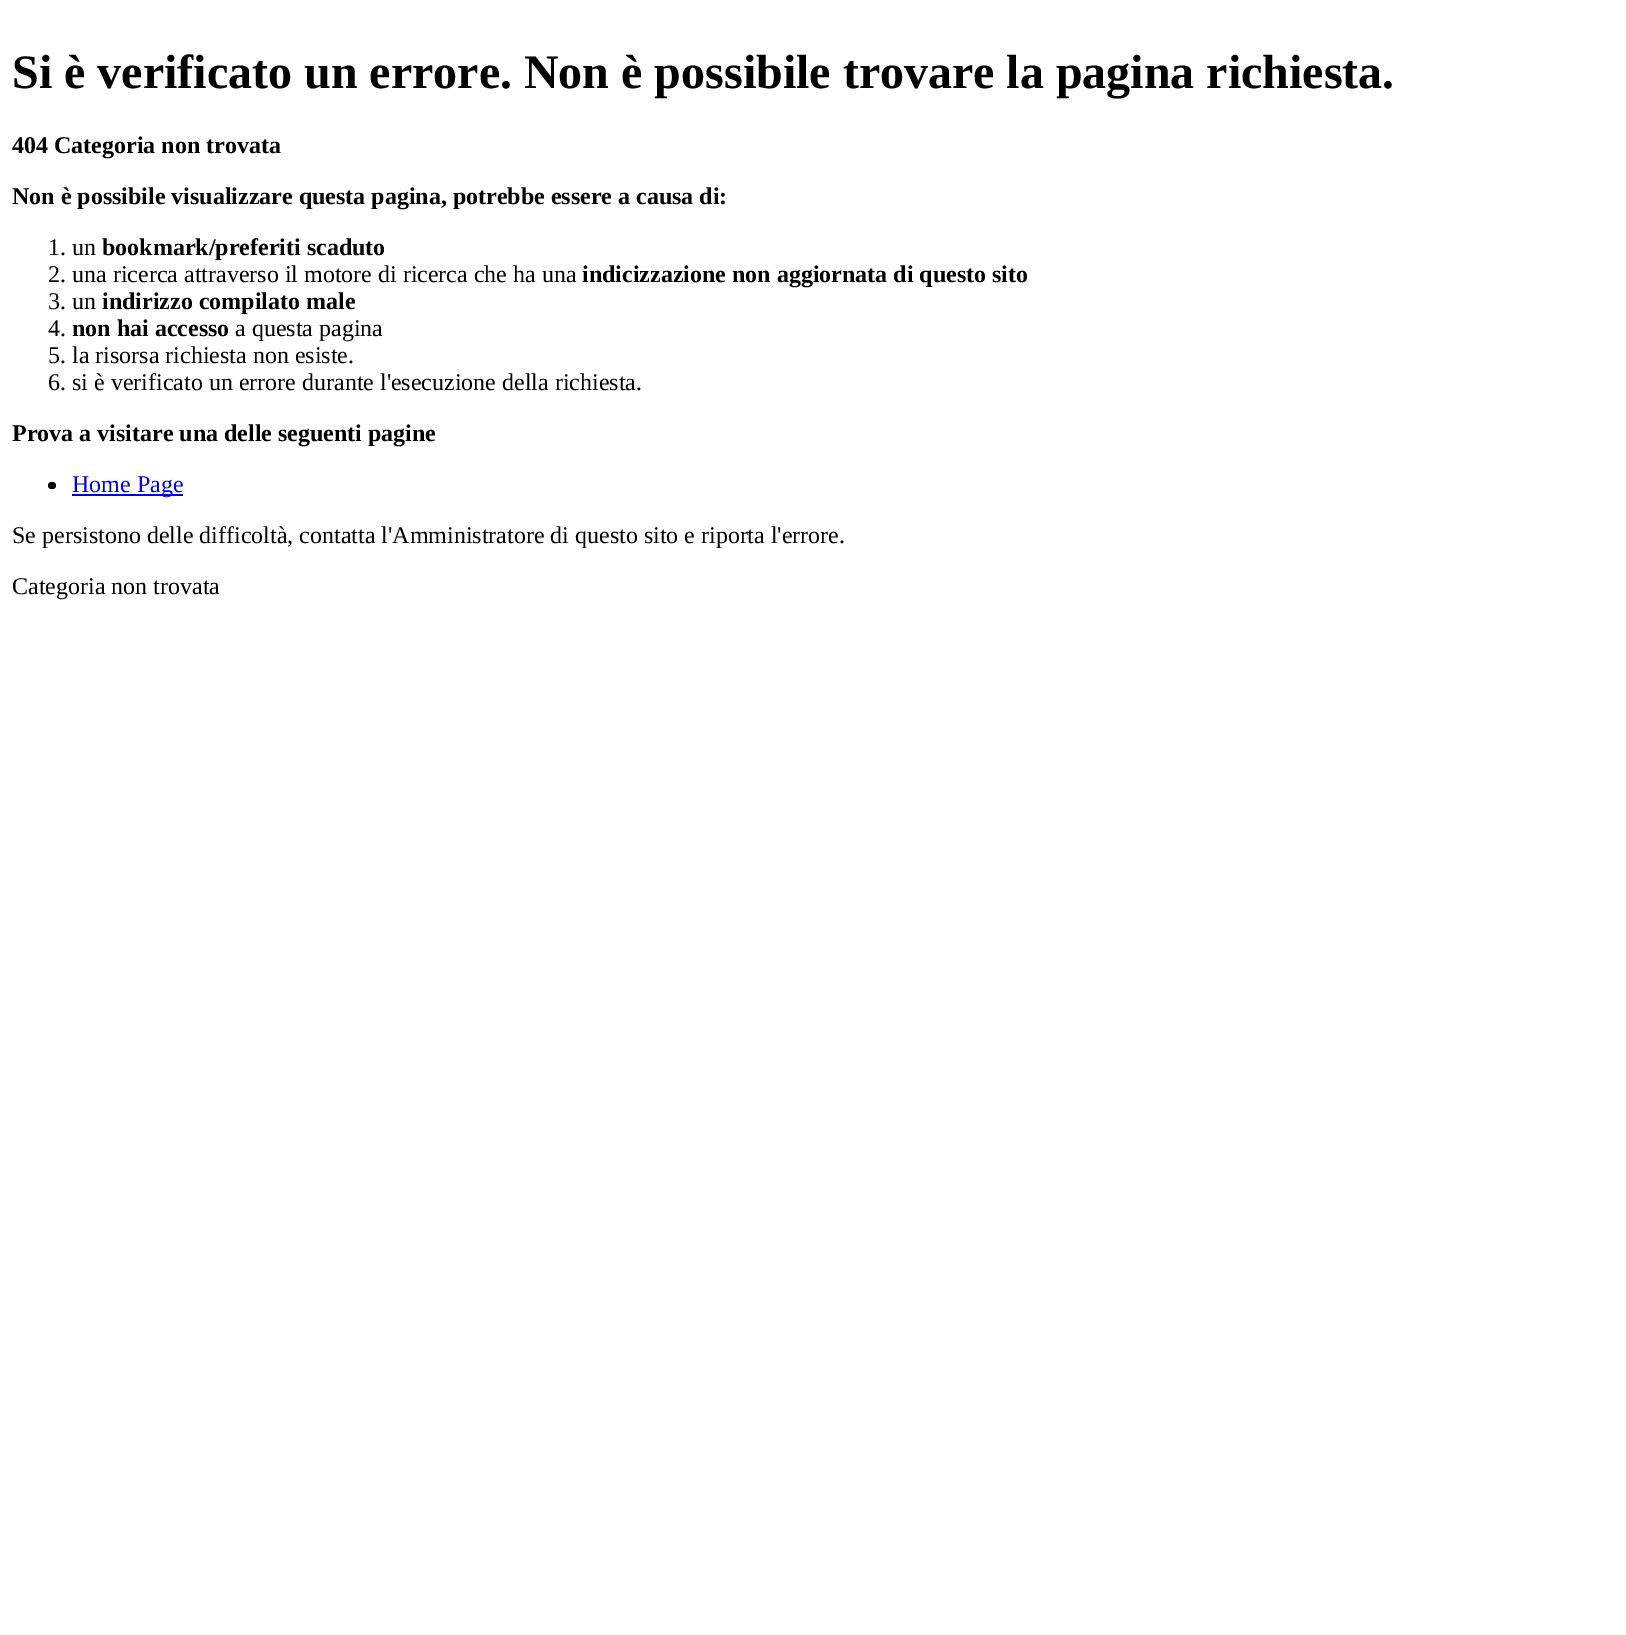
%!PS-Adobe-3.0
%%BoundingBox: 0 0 1626 1635
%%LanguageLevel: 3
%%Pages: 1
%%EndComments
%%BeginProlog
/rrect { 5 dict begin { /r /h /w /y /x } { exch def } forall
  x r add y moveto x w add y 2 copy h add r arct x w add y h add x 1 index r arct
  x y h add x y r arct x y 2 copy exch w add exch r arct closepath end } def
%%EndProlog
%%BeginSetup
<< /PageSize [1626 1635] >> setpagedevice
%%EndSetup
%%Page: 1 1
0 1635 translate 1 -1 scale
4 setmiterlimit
1 setgray
0 0 1626 1635 rectfill
0 setgray
48 482 8 7 3.5 rrect fill
0 0 0.933 setrgbcolor
72 494 111 2 rectfill
/LiberationSerif-Bold [48 0 0 -48 0 0] selectfont
0 setgray
12 88 moveto (Si è verificato un errore. Non è possibile trovare la pagina richiesta.) show
/LiberationSerif-Bold [24 0 0 -24 0 0] selectfont
12 153 moveto (404 Categoria non trovata) show
12 204 moveto (Non è possibile visualizzare questa pagina, potrebbe essere a causa di:) show
/LiberationSerif-Regular [24 0 0 -24 0 0] selectfont
48 255 moveto (1. un) show
/LiberationSerif-Bold [24 0 0 -24 0 0] selectfont
102 255 moveto (bookmark/preferiti scaduto) show
/LiberationSerif-Regular [24 0 0 -24 0 0] selectfont
48 282 moveto (2. una ricerca attraverso il motore di ricerca che ha una) show
/LiberationSerif-Bold [24 0 0 -24 0 0] selectfont
582 282 moveto (indicizzazione non aggiornata di questo sito) show
/LiberationSerif-Regular [24 0 0 -24 0 0] selectfont
48 309 moveto (3. un) show
/LiberationSerif-Bold [24 0 0 -24 0 0] selectfont
102 309 moveto (indirizzo compilato male) show
/LiberationSerif-Regular [24 0 0 -24 0 0] selectfont
48 336 moveto (4.) show
/LiberationSerif-Bold [24 0 0 -24 0 0] selectfont
72 336 moveto (non hai accesso) show
/LiberationSerif-Regular [24 0 0 -24 0 0] selectfont
235 336 moveto (a questa pagina) show
48 363 moveto (5. la risorsa richiesta non esiste.) show
48 390 moveto (6. si è verificato un errore durante l'esecuzione della richiesta.) show
/LiberationSerif-Bold [24 0 0 -24 0 0] selectfont
12 441 moveto (Prova a visitare una delle seguenti pagine) show
/LiberationSerif-Regular [24 0 0 -24 0 0] selectfont
0 0 0.933 setrgbcolor
72 492 moveto (Home Page) show
0 setgray
12 543 moveto (Se persistono delle difficoltà, contatta l'Amministratore di questo sito e riporta l'errore.) show
12 594 moveto (Categoria non trovata) show
showpage
%%EOF
